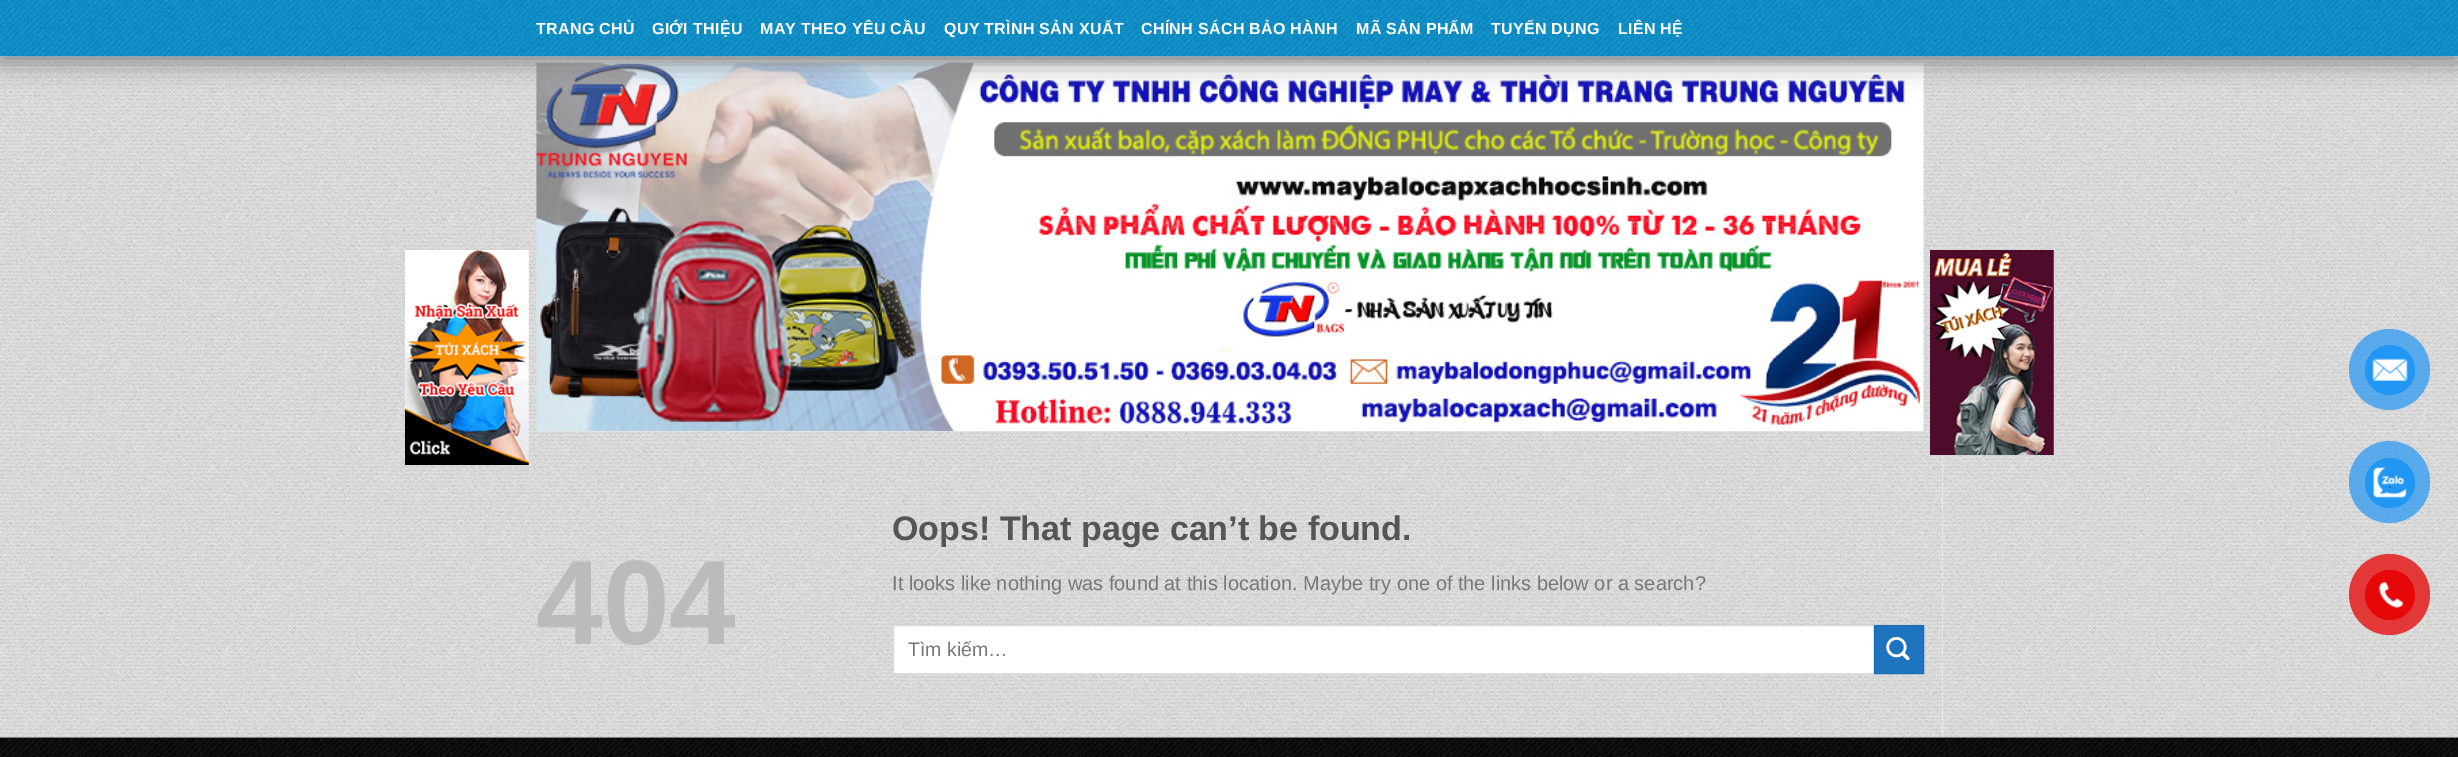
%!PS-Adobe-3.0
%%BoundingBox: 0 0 2458 757
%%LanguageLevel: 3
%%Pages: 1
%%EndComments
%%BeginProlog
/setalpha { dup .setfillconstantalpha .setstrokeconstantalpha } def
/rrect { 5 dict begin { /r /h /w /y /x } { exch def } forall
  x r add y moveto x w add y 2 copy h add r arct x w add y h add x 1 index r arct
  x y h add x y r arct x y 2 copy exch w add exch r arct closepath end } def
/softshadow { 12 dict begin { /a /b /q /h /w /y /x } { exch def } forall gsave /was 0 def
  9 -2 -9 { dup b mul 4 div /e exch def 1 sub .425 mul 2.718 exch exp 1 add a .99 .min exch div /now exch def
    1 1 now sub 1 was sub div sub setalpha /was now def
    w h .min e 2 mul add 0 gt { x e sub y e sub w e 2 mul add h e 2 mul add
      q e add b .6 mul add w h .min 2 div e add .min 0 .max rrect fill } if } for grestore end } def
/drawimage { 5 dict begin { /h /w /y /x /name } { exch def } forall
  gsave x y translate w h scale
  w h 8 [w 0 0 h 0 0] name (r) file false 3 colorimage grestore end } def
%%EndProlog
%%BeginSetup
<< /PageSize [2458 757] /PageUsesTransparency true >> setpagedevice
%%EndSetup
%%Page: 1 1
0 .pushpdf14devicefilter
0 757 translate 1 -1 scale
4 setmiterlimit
1 setgray
0 0 2458 757 rectfill
(images/2.raw) 0 56 2458 682 drawimage
(images/5.raw) 0 431 2458 307 drawimage
0.976 0.965 0.957 setrgbcolor
518 431 1425 307 rectfill
(images/6.raw) 517 431 1426 307 drawimage
(images/1.raw) 405 250 124 215 drawimage
(images/4.raw) 536 62 1388 369 drawimage
0.533 setgray
0 6 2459 57 0 12.5 1 softshadow
(images/3.raw) 0 0 2458 57 drawimage
1 setgray
newpath 893.5 625.5 moveto 1873.5 625.5 lineto 1873.5 673.5 lineto 893.5 673.5 lineto closepath gsave fill grestore
0.867 setgray
stroke
0.118 0.451 0.745 setrgbcolor
newpath 1874.5 625.5 moveto 1923.5 625.5 lineto 1923.5 673.5 lineto 1874.5 673.5 lineto closepath gsave fill grestore
0.114 0.427 0.71 setrgbcolor
stroke
(images/7.raw) 1886 636 24 25 drawimage
(images/8.raw) 0 737 2458 20 drawimage
(images/9.raw) 1930 250 124 205 drawimage
0.7 setalpha
0.129 0.588 0.953 setrgbcolor
newpath 2389.5 369.5 40.5 0 360 arc closepath fill
1 setalpha
newpath 2390 370 25 0 360 arc closepath fill
(images/10.raw) 2372 358 36 23 drawimage
0.7 setalpha
2349 441 81 82 40.5 rrect fill
1 setalpha
newpath 2390 483 25 0 360 arc closepath fill
0.77 setalpha
0.902 0.031 0.031 setrgbcolor
newpath 2389.5 594.5 40.5 0 360 arc closepath fill
1 setalpha
newpath 2390 595 25 0 360 arc closepath fill
/LiberationSans-Bold [16 0 0 -16 0 0] selectfont
1 setgray
536 34 moveto 0.3 0 (TRANG CHỦ) ashow
652 34 moveto 0.3 0 (GIỚI THIỆU) ashow
760 34 moveto 0.3 0 (MAY THEO YÊU CẦU) ashow
944 34 moveto 0.3 0 (QUY TRÌNH SẢN XUẤT) ashow
1141 34 moveto 0.3 0 (CHÍNH SÁCH BẢO HÀNH) ashow
1356 34 moveto 0.3 0 (MÃ SẢN PHẨM) ashow
1491 34 moveto 0.3 0 (TUYỂN DỤNG) ashow
1618 34 moveto 0.3 0 (LIÊN HỆ) ashow
/LiberationSans-Bold [120 0 0 -120 0 0] selectfont
0.733 setgray
536 644 moveto (404) show
/LiberationSans-Bold [34 0 0 -34 0 0] selectfont
0.333 setgray
892 540 moveto (Oops! That page can’t be found.) show
/LiberationSans-Regular [20 0 0 -20 0 0] selectfont
0.467 setgray
892 590 moveto (It looks like nothing was found at this location. Maybe try one of the links below or a search?) show
/LiberationSans-Regular [19.5 0 0 -19.5 0 0] selectfont
908 656 moveto (Tìm kiếm…) show
/LiberationSans-Regular [20 0 0 -20 0 0] selectfont
0.118 0.451 0.745 setrgbcolor
2387 488 moveto (.) show
(images/11.raw) 2373 467 34 31 drawimage
2387 600 moveto (.) show
(images/12.raw) 2378 581 26 27 drawimage
.poppdf14devicefilter showpage
%%EOF
